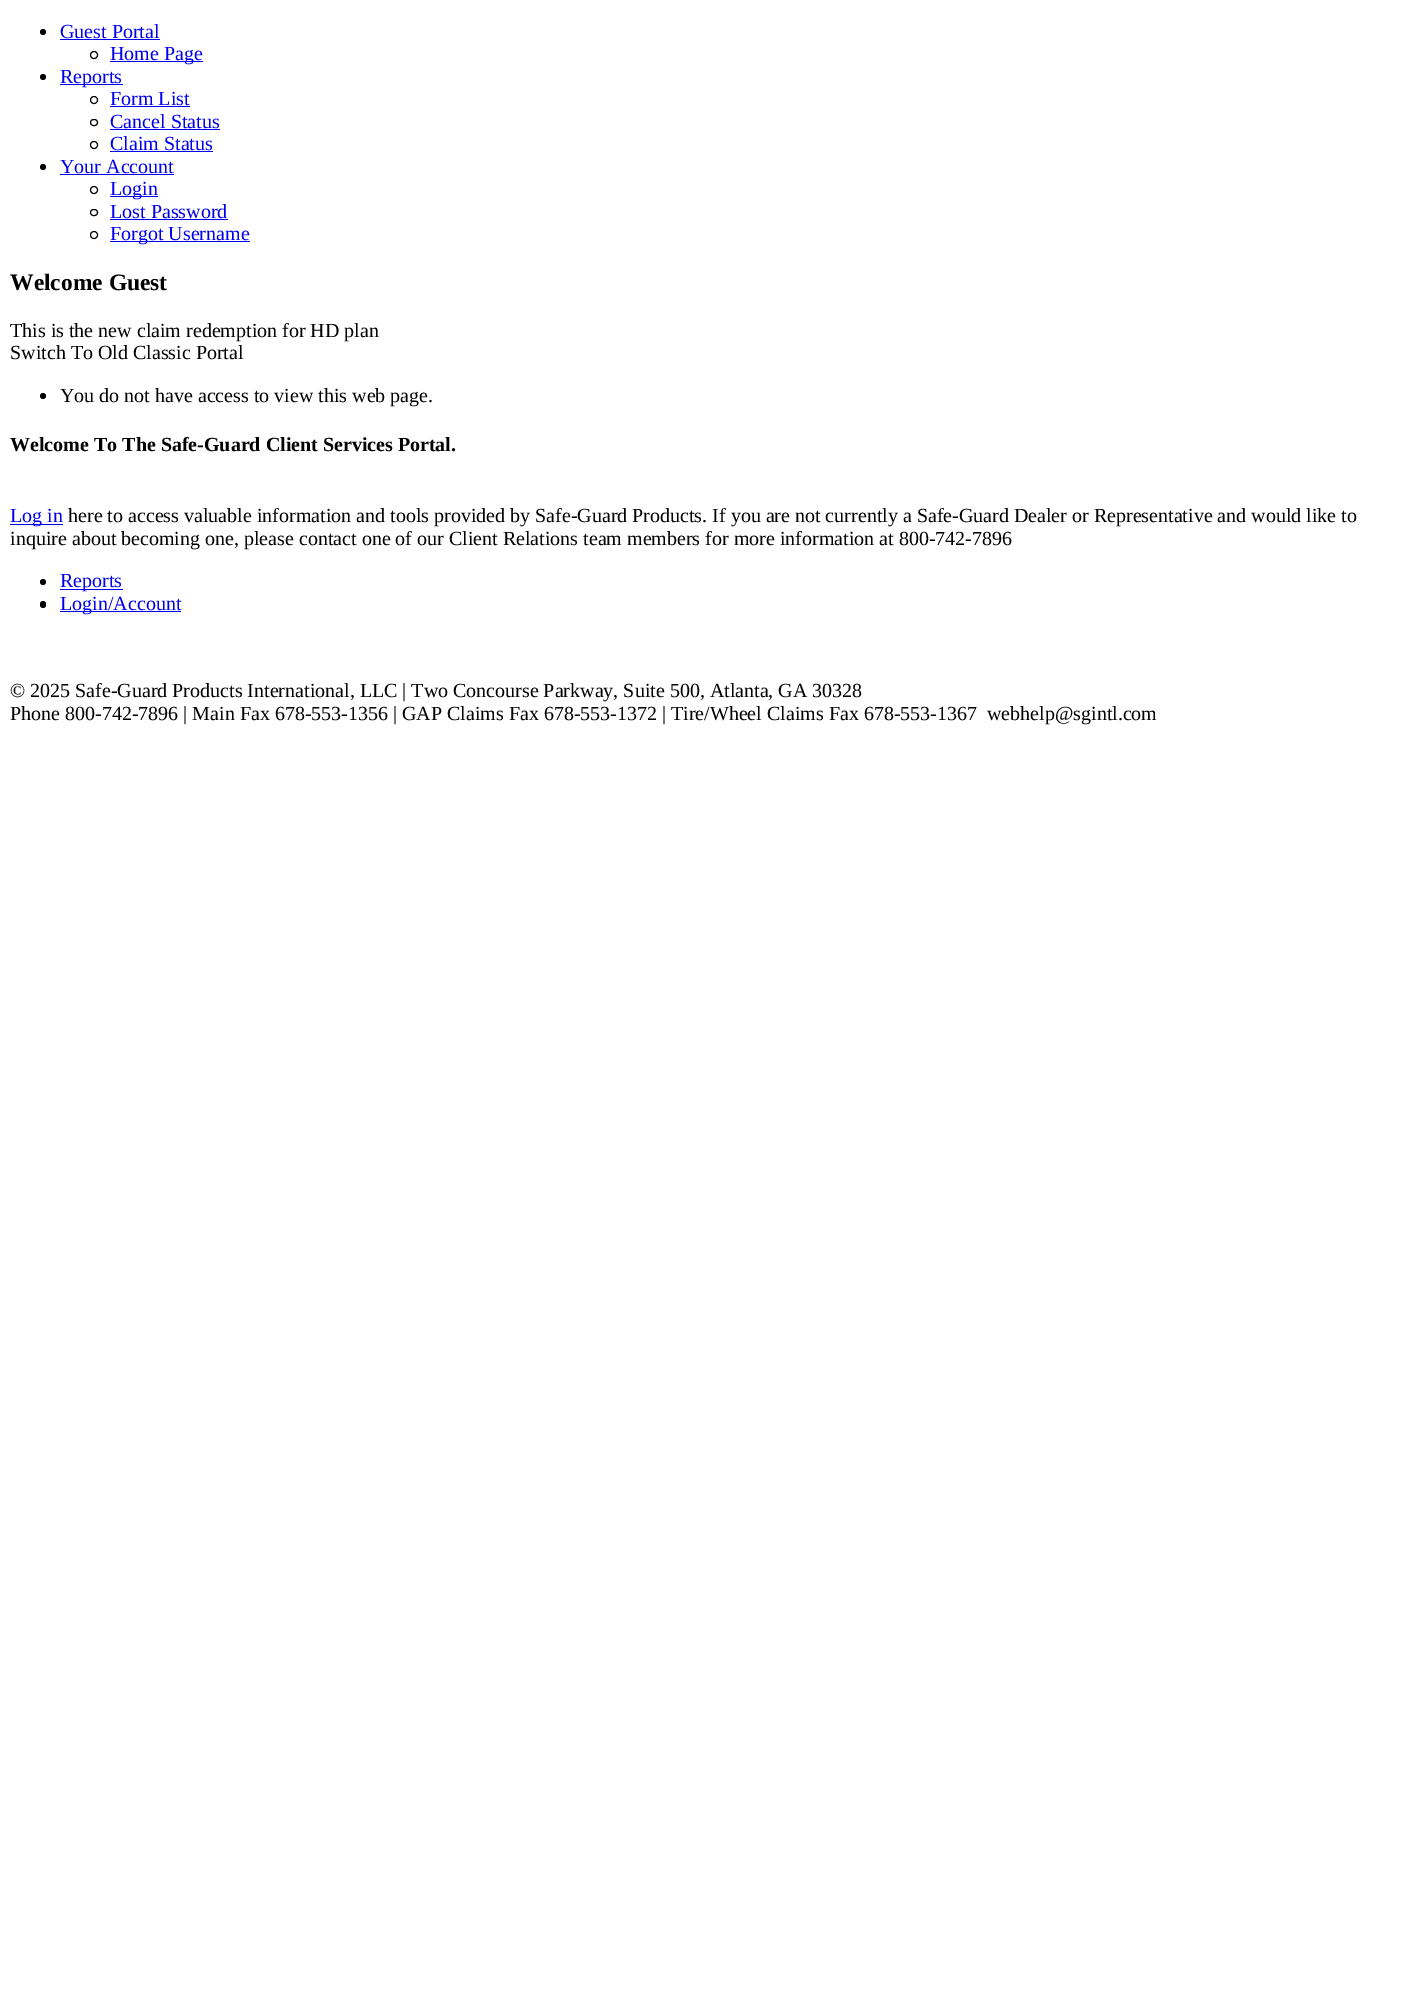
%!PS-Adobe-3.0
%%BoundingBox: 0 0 1424 2009
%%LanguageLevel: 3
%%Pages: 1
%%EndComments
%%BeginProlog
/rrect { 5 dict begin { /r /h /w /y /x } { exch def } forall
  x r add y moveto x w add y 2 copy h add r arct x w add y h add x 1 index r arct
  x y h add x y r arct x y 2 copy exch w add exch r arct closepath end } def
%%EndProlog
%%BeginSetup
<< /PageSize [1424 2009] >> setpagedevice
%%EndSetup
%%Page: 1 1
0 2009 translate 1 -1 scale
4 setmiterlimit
1 setgray
0 0 1424 2009 rectfill
0 setgray
newpath 43 32 3 0 360 arc closepath fill
0 0 0.933 setrgbcolor
60 39 100 1 rectfill
0 setgray
newpath 94 55 3.5 0 360 arc closepath stroke
0 0 0.933 setrgbcolor
110 61 93 1 rectfill
0 setgray
newpath 43 77 3 0 360 arc closepath fill
0 0 0.933 setrgbcolor
60 84 63 1 rectfill
0 setgray
newpath 94 100 3.5 0 360 arc closepath stroke
0 0 0.933 setrgbcolor
110 106 80 1 rectfill
0 setgray
90.5 119.5 7 6 3 rrect stroke
0 0 0.933 setrgbcolor
110 129 110 1 rectfill
0 setgray
newpath 94 145 3.5 0 360 arc closepath stroke
0 0 0.933 setrgbcolor
110 151 103 1 rectfill
0 setgray
newpath 43 167 3 0 360 arc closepath fill
0 0 0.933 setrgbcolor
60 174 114 1 rectfill
0 setgray
newpath 94 190 3.5 0 360 arc closepath stroke
0 0 0.933 setrgbcolor
110 196 48 1 rectfill
0 setgray
90.5 209.5 7 6 3 rrect stroke
0 0 0.933 setrgbcolor
110 219 118 1 rectfill
0 setgray
newpath 94 235 3.5 0 360 arc closepath stroke
0 0 0.933 setrgbcolor
110 241 140 1 rectfill
0 setgray
newpath 43 396 3 0 360 arc closepath fill
0 0 0.933 setrgbcolor
10 524 53 1 rectfill
0 setgray
newpath 43 582 3 0 360 arc closepath fill
0 0 0.933 setrgbcolor
60 589 63 1 rectfill
0 setgray
40 601 6 7 3 rrect fill
0 0 0.933 setrgbcolor
60 611 121 1 rectfill
/LiberationSerif-Regular [20 0 0 -20 0 0] selectfont
60 38 moveto (Guest Portal) show
110 60 moveto (Home Page) show
60 83 moveto (Reports) show
110 105 moveto (Form List) show
110 128 moveto (Cancel Status) show
110 150 moveto (Claim Status) show
60 173 moveto (Your Account) show
110 195 moveto (Login) show
110 218 moveto (Lost Password) show
110 240 moveto (Forgot Username) show
/LiberationSerif-Bold [23.5 0 0 -23.5 0 0] selectfont
0 setgray
10 290 moveto (Welcome Guest) show
/LiberationSerif-Regular [20 0 0 -20 0 0] selectfont
10 337 moveto (This is the new claim redemption for HD plan) show
10 359 moveto (Switch To Old Classic Portal) show
60 402 moveto (You do not have access to view this web page.) show
/LiberationSerif-Bold [20 0 0 -20 0 0] selectfont
10 451 moveto (Welcome To The Safe-Guard Client Services Portal.) show
/LiberationSerif-Regular [20 0 0 -20 0 0] selectfont
0 0 0.933 setrgbcolor
10 522 moveto (Log in) show
0 setgray
68 522 moveto (here to access valuable information and tools provided by Safe-Guard Products. If you are not currently a Safe-Guard Dealer or Representative and would like to) show
10 545 moveto (inquire about becoming one, please contact one of our Client Relations team members for more information at 800-742-7896) show
0 0 0.933 setrgbcolor
60 587 moveto (Reports) show
60 610 moveto (Login/Account) show
0 setgray
10 697 moveto (© 2025 Safe-Guard Products International, LLC | Two Concourse Parkway, Suite 500, Atlanta, GA 30328) show
10 720 moveto (Phone 800-742-7896 | Main Fax 678-553-1356 | GAP Claims Fax 678-553-1372 | Tire/Wheel Claims Fax 678-553-1367) show
987 720 moveto (webhelp@sgintl.com) show
showpage
%%EOF
